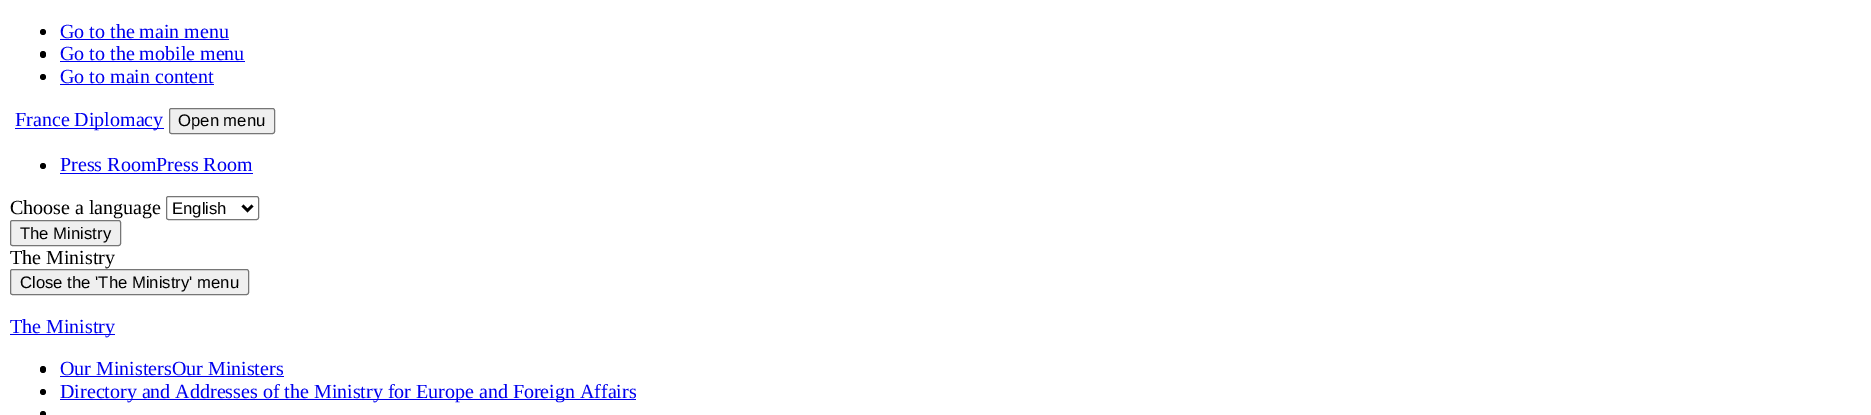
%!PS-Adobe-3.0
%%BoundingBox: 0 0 1871 415
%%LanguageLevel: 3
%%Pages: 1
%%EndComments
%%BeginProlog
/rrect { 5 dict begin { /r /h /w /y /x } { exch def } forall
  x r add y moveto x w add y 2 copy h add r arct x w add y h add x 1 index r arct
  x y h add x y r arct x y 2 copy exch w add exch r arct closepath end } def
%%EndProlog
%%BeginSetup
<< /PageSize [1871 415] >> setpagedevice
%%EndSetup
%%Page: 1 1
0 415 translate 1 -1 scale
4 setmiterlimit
1 setgray
0 0 1871 415 rectfill
0 setgray
newpath 43 32 3 0 360 arc closepath fill
0 0 0.933 setrgbcolor
60 39 169 1 rectfill
0 setgray
40 51 6 7 3 rrect fill
0 0 0.933 setrgbcolor
60 61 185 1 rectfill
0 setgray
newpath 43 77 3 0 360 arc closepath fill
0 0 0.933 setrgbcolor
60 84 154 1 rectfill
15 128 149 1 rectfill
0.937 setgray
169.5 108.5 105 25 2 rrect gsave fill grestore
0.463 setgray
stroke
0 setgray
newpath 43 166 3 0 360 arc closepath fill
0 0 0.933 setrgbcolor
60 173 193 1 rectfill
0.463 setgray
166.5 196.5 92 23 2 rrect stroke
0 setgray
2.5 setlinewidth
newpath 242.5 205.5 moveto 247.5 210.5 lineto 252.5 205.5 lineto stroke
0.937 setgray
10.5 220.5 110 25 2 rrect gsave fill grestore
0.463 setgray
1 setlinewidth
stroke
0.937 setgray
10.5 269.5 238 25 2 rrect gsave fill grestore
0.463 setgray
stroke
0 0 0.933 setrgbcolor
10 334 105 1 rectfill
0 setgray
40 366 6 7 3 rrect fill
0 0 0.933 setrgbcolor
60 376 224 1 rectfill
0 setgray
newpath 43 392 3 0 360 arc closepath fill
0 0 0.933 setrgbcolor
60 399 576 1 rectfill
0 setgray
40 411 6 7 3 rrect fill
/LiberationSerif-Regular [20 0 0 -20 0 0] selectfont
0 0 0.933 setrgbcolor
60 38 moveto (Go to the main menu) show
60 60 moveto (Go to the mobile menu) show
60 83 moveto (Go to main content) show
15 126 moveto (France Diplomacy) show
/LiberationSans-Regular [16.7 0 0 -16.7 0 0] selectfont
0 setgray
178 126 moveto (Open menu) show
/LiberationSerif-Regular [20 0 0 -20 0 0] selectfont
0 0 0.933 setrgbcolor
60 171 moveto (Press RoomPress Room) show
0 setgray
10 214 moveto (Choose a language) show
/LiberationSans-Regular [16.7 0 0 -16.7 0 0] selectfont
172 214 moveto (English) show
20 239 moveto (The Ministry) show
/LiberationSerif-Regular [20 0 0 -20 0 0] selectfont
10 264 moveto (The Ministry) show
/LiberationSans-Regular [16.7 0 0 -16.7 0 0] selectfont
20 288 moveto (Close the 'The Ministry' menu) show
/LiberationSerif-Regular [20 0 0 -20 0 0] selectfont
0 0 0.933 setrgbcolor
10 333 moveto (The Ministry) show
60 375 moveto (Our MinistersOur Ministers) show
60 398 moveto (Directory and Addresses of the Ministry for Europe and Foreign Affairs) show
showpage
%%EOF
